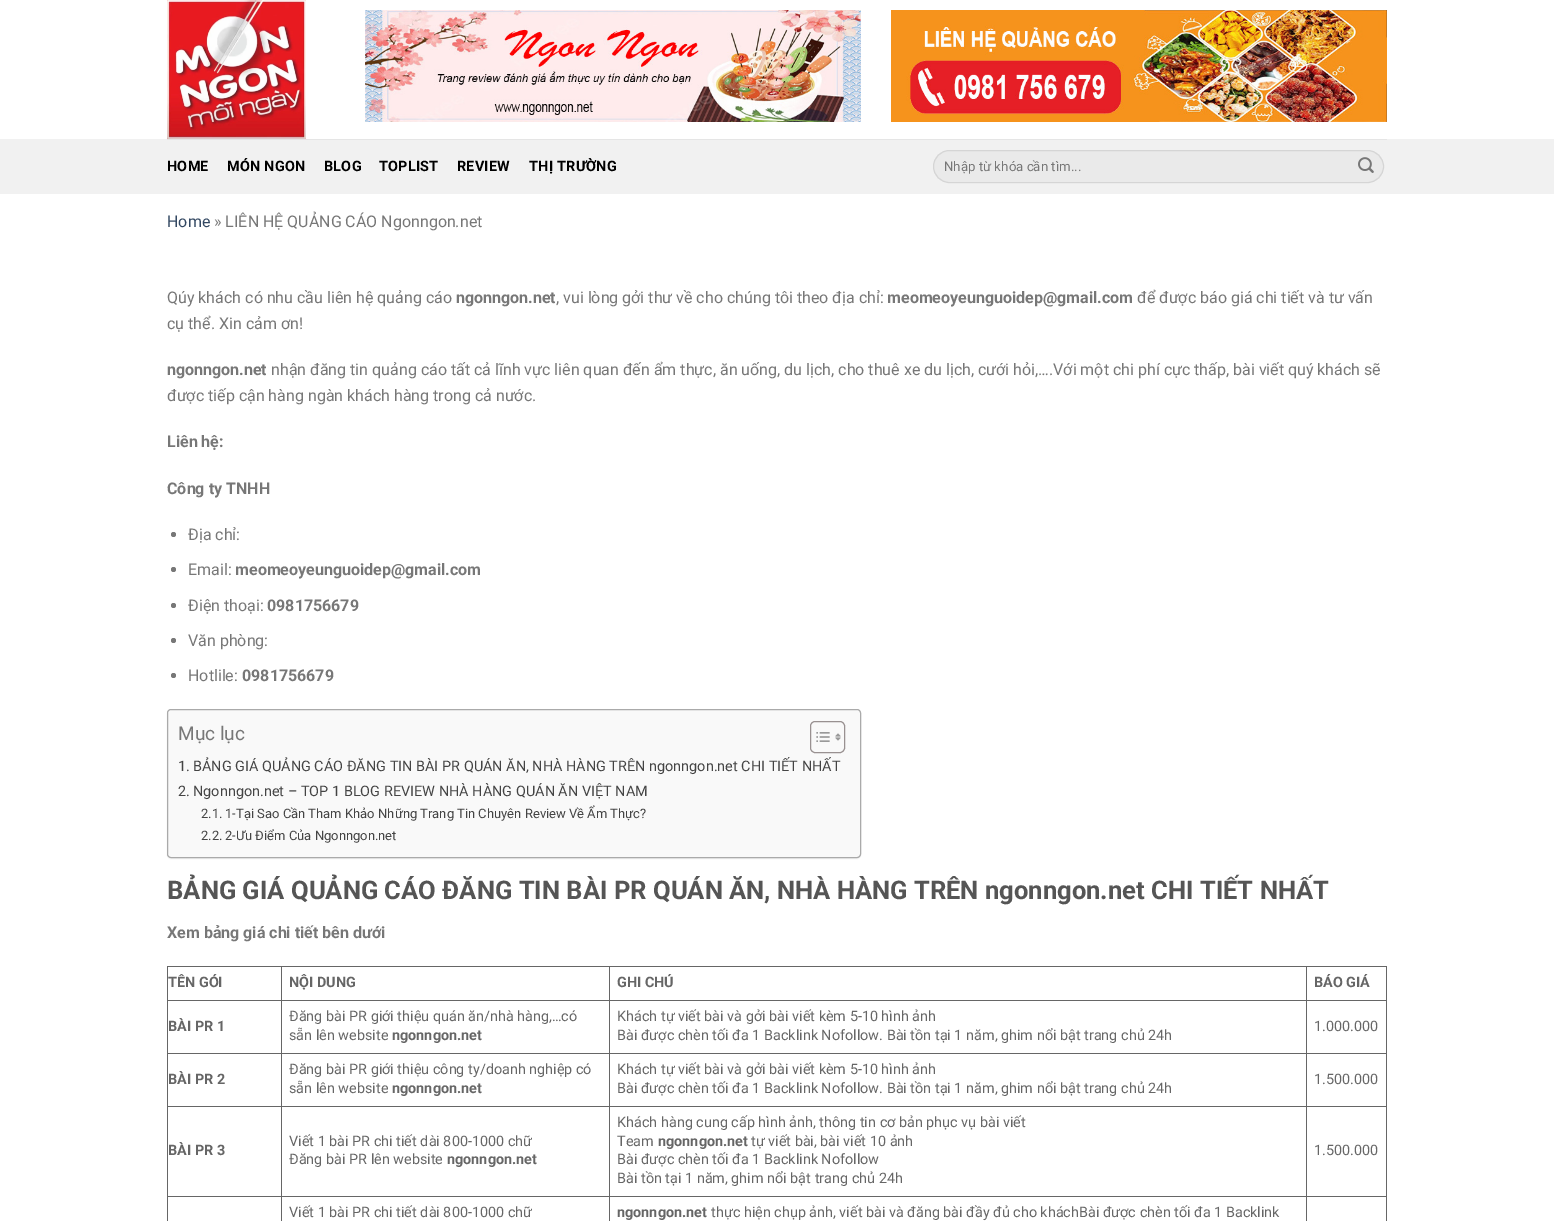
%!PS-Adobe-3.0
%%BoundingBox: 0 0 1554 1221
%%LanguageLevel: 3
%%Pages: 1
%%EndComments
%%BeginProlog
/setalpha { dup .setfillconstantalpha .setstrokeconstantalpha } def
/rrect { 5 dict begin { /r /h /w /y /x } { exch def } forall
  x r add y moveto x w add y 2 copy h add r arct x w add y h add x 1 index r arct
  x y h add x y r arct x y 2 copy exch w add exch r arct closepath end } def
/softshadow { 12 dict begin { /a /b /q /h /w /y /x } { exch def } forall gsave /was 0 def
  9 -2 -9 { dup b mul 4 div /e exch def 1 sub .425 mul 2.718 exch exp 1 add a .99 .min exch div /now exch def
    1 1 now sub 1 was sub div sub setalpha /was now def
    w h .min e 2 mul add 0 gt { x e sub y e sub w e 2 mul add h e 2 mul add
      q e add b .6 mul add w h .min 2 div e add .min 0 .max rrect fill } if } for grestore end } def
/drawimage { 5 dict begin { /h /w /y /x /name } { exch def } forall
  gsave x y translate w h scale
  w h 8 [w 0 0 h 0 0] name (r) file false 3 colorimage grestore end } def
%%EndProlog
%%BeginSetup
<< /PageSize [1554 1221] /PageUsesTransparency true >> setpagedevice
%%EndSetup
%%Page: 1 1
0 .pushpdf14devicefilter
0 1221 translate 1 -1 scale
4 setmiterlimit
1 setgray
0 0 1554 1221 rectfill
(images/1.raw) 167 0 139 139 drawimage
(images/2.raw) 365 10 496 112 drawimage
(images/3.raw) 891 10 496 112 drawimage
0.945 setgray
0 139 1554 55 rectfill
0.898 setgray
167 139 1220 1 rectfill
0.918 setgray
933 150 451 33 16.5 rrect fill
0.09 setalpha
0 setgray
933.5 150.5 450 32 16 rrect stroke
1 setalpha
(images/4.raw) 1358 157 16 16 drawimage
0.467 setgray
newpath 173.5 534.5 2.5 0 360 arc closepath fill
newpath 173.5 569.5 2.5 0 360 arc closepath fill
newpath 173.5 605.5 2.5 0 360 arc closepath fill
newpath 173.5 640.5 2.5 0 360 arc closepath fill
newpath 173.5 675.5 2.5 0 360 arc closepath fill
0 setgray
167 710 694 149 4 0.5 0.05 softshadow
0.976 setgray
167.5 709.5 693 148 3.5 rrect gsave fill grestore
0.667 setgray
stroke
0.6 0.569 0.569 setrgbcolor
810.5 721.5 34 31 4.5 rrect stroke
(images/5.raw) 816 732 14 10 drawimage
(images/6.raw) 835 733 6 8 drawimage
0.4 setgray
1306 966 81 1 rectfill
1306 1000 81 1 rectfill
1306 1053 81 1 rectfill
1306 1106 81 1 rectfill
1306 1196 81 1 rectfill
1306 1196 1 25 rectfill
609 1196 698 1 rectfill
1306 1106 1 91 rectfill
609 1106 698 1 rectfill
1306 1053 1 54 rectfill
609 1053 698 1 rectfill
1306 1000 1 54 rectfill
609 1000 698 1 rectfill
1306 966 1 35 rectfill
609 966 698 1 rectfill
609 1196 1 25 rectfill
281 1196 329 1 rectfill
609 1106 1 91 rectfill
281 1106 329 1 rectfill
609 1053 1 54 rectfill
281 1053 329 1 rectfill
609 1000 1 54 rectfill
281 1000 329 1 rectfill
609 966 1 35 rectfill
281 966 329 1 rectfill
281 1196 1 25 rectfill
167 1196 115 1 rectfill
281 1106 1 91 rectfill
167 1106 115 1 rectfill
281 1053 1 54 rectfill
167 1053 115 1 rectfill
281 1000 1 54 rectfill
167 1000 115 1 rectfill
281 966 1 35 rectfill
167 966 115 1 rectfill
167 1196 1 25 rectfill
167 1106 1 91 rectfill
167 1053 1 54 rectfill
167 1000 1 54 rectfill
167 966 1 35 rectfill
1386 1196 1 25 rectfill
1386 1106 1 91 rectfill
1386 1053 1 54 rectfill
1386 1000 1 54 rectfill
1386 966 1 35 rectfill
/Roboto-Bold [14.4 0 0 -14.4 0 0] selectfont
0 setgray
167 171 moveto 0.25 0 (HOME) ashow
227 171 moveto 0.25 0 (MÓN NGON) ashow
324 171 moveto 0.25 0 (BLOG) ashow
379 171 moveto 0.25 0 (TOPLIST) ashow
457 171 moveto 0.25 0 (REVIEW) ashow
529 171 moveto 0.25 0 (THỊ TRƯỜNG) ashow
/Roboto-Regular [13.25 0 0 -13.25 0 0] selectfont
0.467 setgray
944 171 moveto (Nhập từ khóa cần tìm...) show
/Roboto-Regular [16 0 0 -16 0 0] selectfont
0.2 0.282 0.384 setrgbcolor
167 227 moveto (Home) show
0.467 setgray
214 227 moveto (» LIÊN HỆ QUẢNG CÁO Ngonngon.net) show
167 303 moveto (Qúy khách có nhu cầu liên hệ quảng cáo) show
/Roboto-Bold [16 0 0 -16 0 0] selectfont
456 303 moveto (ngonngon.net) show
/Roboto-Regular [16 0 0 -16 0 0] selectfont
556 303 moveto (, vui lòng gởi thư về cho chúng tôi theo địa chỉ:) show
/Roboto-Bold [16 0 0 -16 0 0] selectfont
887 303 moveto (meomeoyeunguoidep@gmail.com) show
/Roboto-Regular [16 0 0 -16 0 0] selectfont
1137 303 moveto (để được báo giá chi tiết và tư vấn) show
167 329 moveto (cụ thể. Xin cảm ơn!) show
/Roboto-Bold [16 0 0 -16 0 0] selectfont
167 375 moveto (ngonngon.net) show
/Roboto-Regular [16 0 0 -16 0 0] selectfont
271 375 moveto (nhận đăng tin quảng cáo tất cả lĩnh vực liên quan đến ẩm thực, ăn uống, du lịch, cho thuê xe du lịch, cưới hỏi,….Với một chi phí cực thấp, bài viết quý khách sẽ) show
167 401 moveto (được tiếp cận hàng ngàn khách hàng trong cả nước.) show
/Roboto-Bold [16 0 0 -16 0 0] selectfont
167 447 moveto (Liên hệ:) show
167 494 moveto (Công ty TNHH) show
/Roboto-Regular [16 0 0 -16 0 0] selectfont
188 540 moveto (Địa chỉ:) show
188 575 moveto (Email:) show
/Roboto-Bold [16 0 0 -16 0 0] selectfont
235 575 moveto (meomeoyeunguoidep@gmail.com) show
/Roboto-Regular [16 0 0 -16 0 0] selectfont
188 611 moveto (Điện thoại:) show
/Roboto-Bold [16 0 0 -16 0 0] selectfont
267 611 moveto (0981756679) show
/Roboto-Regular [16 0 0 -16 0 0] selectfont
188 646 moveto (Văn phòng:) show
188 681 moveto (Hotlile:) show
/Roboto-Bold [16 0 0 -16 0 0] selectfont
242 681 moveto (0981756679) show
/Roboto-Regular [19 0 0 -19 0 0] selectfont
178 740 moveto (Mục lục) show
/Roboto-Regular [14.45 0 0 -14.45 0 0] selectfont
0.267 setgray
178 771 moveto (1.) show
193 771 moveto (BẢNG GIÁ QUẢNG CÁO ĐĂNG TIN BÀI PR QUÁN ĂN, NHÀ HÀNG TRÊN ngonngon.net CHI TIẾT NHẤT) show
178 796 moveto (2.) show
193 796 moveto (Ngonngon.net – TOP 1 BLOG REVIEW NHÀ HÀNG QUÁN ĂN VIỆT NAM) show
/Roboto-Regular [13 0 0 -13 0 0] selectfont
201 818 moveto (2.1.) show
225 818 moveto (1-Tại Sao Cần Tham Khảo Những Trang Tin Chuyên Review Về Ẩm Thực?) show
201 840 moveto (2.2.) show
225 840 moveto (2-Ưu Điểm Của Ngonngon.net) show
/Roboto-Bold [25.6 0 0 -25.6 0 0] selectfont
0.333 setgray
167 899 moveto (BẢNG GIÁ QUẢNG CÁO ĐĂNG TIN BÀI PR QUÁN ĂN, NHÀ HÀNG TRÊN ngonngon.net CHI TIẾT NHẤT) show
/Roboto-Bold [16 0 0 -16 0 0] selectfont
0.467 setgray
167 938 moveto (Xem bảng giá chi tiết bên dưới) show
/Roboto-Bold [14.4 0 0 -14.4 0 0] selectfont
0.4 setgray
168 987 moveto (TÊN GÓI) show
289 987 moveto (NỘI DUNG) show
617 987 moveto (GHI CHÚ) show
1314 987 moveto (BÁO GIÁ) show
168 1031 moveto (BÀI PR 1) show
/Roboto-Regular [14.4 0 0 -14.4 0 0] selectfont
289 1021 moveto (Đăng bài PR giới thiệu quán ăn/nhà hàng,…có) show
289 1040 moveto (sẵn lên website) show
/Roboto-Bold [14.4 0 0 -14.4 0 0] selectfont
392 1040 moveto (ngonngon.net) show
/Roboto-Regular [14.4 0 0 -14.4 0 0] selectfont
617 1021 moveto (Khách tự viết bài và gởi bài viết kèm 5-10 hình ảnh) show
617 1040 moveto (Bài được chèn tối đa 1 Backlink Nofollow. Bài tồn tại 1 năm, ghim nổi bật trang chủ 24h) show
1314 1031 moveto (1.000.000) show
/Roboto-Bold [14.4 0 0 -14.4 0 0] selectfont
168 1084 moveto (BÀI PR 2) show
/Roboto-Regular [14.4 0 0 -14.4 0 0] selectfont
289 1074 moveto (Đăng bài PR giới thiệu công ty/doanh nghiệp có) show
289 1093 moveto (sẵn lên website) show
/Roboto-Bold [14.4 0 0 -14.4 0 0] selectfont
392 1093 moveto (ngonngon.net) show
/Roboto-Regular [14.4 0 0 -14.4 0 0] selectfont
617 1074 moveto (Khách tự viết bài và gởi bài viết kèm 5-10 hình ảnh) show
617 1093 moveto (Bài được chèn tối đa 1 Backlink Nofollow. Bài tồn tại 1 năm, ghim nổi bật trang chủ 24h) show
1314 1084 moveto (1.500.000) show
/Roboto-Bold [14.4 0 0 -14.4 0 0] selectfont
168 1155 moveto (BÀI PR 3) show
/Roboto-Regular [14.4 0 0 -14.4 0 0] selectfont
289 1146 moveto (Viết 1 bài PR chi tiết dài 800-1000 chữ) show
289 1164 moveto (Đăng bài PR lên website) show
/Roboto-Bold [14.4 0 0 -14.4 0 0] selectfont
447 1164 moveto (ngonngon.net) show
/Roboto-Regular [14.4 0 0 -14.4 0 0] selectfont
617 1127 moveto (Khách hàng cung cấp hình ảnh, thông tin cơ bản phục vụ bài viết) show
617 1146 moveto (Team) show
/Roboto-Bold [14.4 0 0 -14.4 0 0] selectfont
658 1146 moveto (ngonngon.net) show
/Roboto-Regular [14.4 0 0 -14.4 0 0] selectfont
751 1146 moveto (tự viết bài, bài viết 10 ảnh) show
617 1164 moveto (Bài được chèn tối đa 1 Backlink Nofollow) show
617 1183 moveto (Bài tồn tại 1 năm, ghim nổi bật trang chủ 24h) show
1314 1155 moveto (1.500.000) show
289 1217 moveto (Viết 1 bài PR chi tiết dài 800-1000 chữ) show
/Roboto-Bold [14.4 0 0 -14.4 0 0] selectfont
617 1217 moveto (ngonngon.net) show
/Roboto-Regular [14.4 0 0 -14.4 0 0] selectfont
711 1217 moveto (thực hiện chụp ảnh, viết bài và đăng bài đầy đủ cho kháchBài được chèn tối đa 1 Backlink) show
.poppdf14devicefilter showpage
%%EOF
